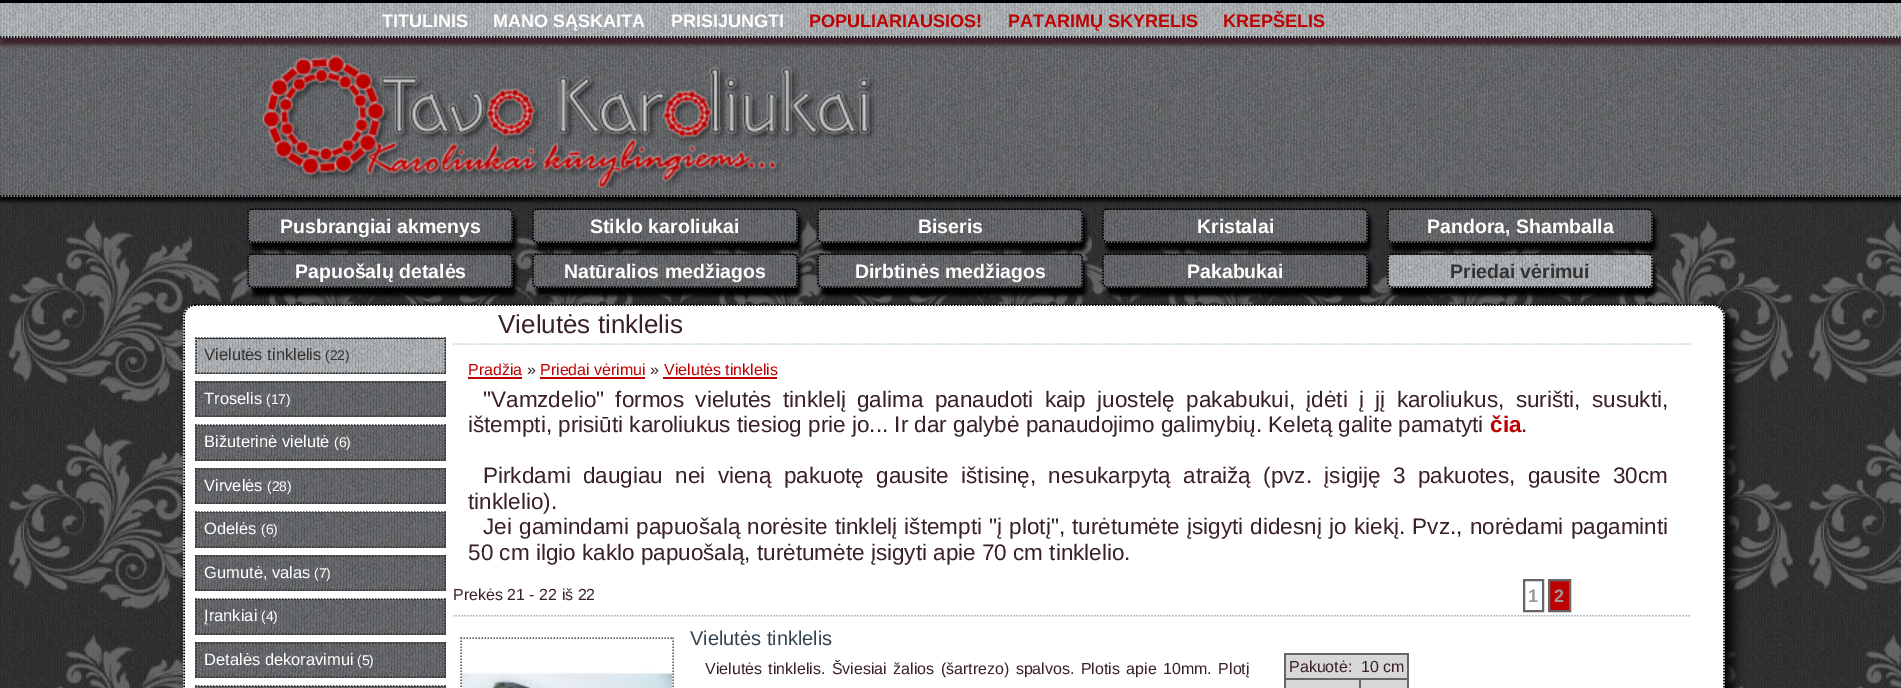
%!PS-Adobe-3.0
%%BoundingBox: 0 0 1901 688
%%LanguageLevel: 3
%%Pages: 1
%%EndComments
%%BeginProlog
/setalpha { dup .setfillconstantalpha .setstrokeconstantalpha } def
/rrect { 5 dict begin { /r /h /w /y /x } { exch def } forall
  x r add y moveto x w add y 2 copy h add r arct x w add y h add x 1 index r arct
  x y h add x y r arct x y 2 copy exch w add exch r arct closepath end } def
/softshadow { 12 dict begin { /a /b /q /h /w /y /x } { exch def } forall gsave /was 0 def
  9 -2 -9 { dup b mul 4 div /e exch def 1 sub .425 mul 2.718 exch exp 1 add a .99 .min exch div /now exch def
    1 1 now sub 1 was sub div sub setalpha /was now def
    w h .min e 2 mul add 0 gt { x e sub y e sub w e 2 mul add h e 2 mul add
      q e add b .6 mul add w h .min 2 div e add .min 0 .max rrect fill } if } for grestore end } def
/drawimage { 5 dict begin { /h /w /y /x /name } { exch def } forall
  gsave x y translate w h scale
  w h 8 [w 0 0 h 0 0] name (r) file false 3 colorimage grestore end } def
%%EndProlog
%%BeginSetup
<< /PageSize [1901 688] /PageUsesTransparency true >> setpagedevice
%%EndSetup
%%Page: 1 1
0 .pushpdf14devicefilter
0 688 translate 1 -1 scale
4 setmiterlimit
1 setgray
0 0 1901 688 rectfill
(images/1.raw) 0 197 1901 491 drawimage
0 setgray
0 5 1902 196 0 2 1 softshadow
0.706 0.784 0.835 setrgbcolor
0 196 1901 1 rectfill
(images/2.raw) 0 38 1901 159 drawimage
0 setgray
1.5 setlinewidth
[1.5 1.5] 0 setdash
newpath 0 196 moveto 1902 196 lineto stroke
0.227 0.129 0.153 setrgbcolor
0 8 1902 37 0 2 1 softshadow
0.706 0.784 0.835 setrgbcolor
0 37 1901 1 rectfill
(images/3.raw) 0 3 1901 35 drawimage
0 setgray
0 0 1901 3 rectfill
newpath 0 37 moveto 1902 37 lineto stroke
(images/4.raw) 262 54 614 134 drawimage
251 216 265 35 5 2 1 softshadow
0.2 setgray
248 209 265 34 5 rrect fill
(images/5.raw) 247 210 266 33 drawimage
0 setgray
newpath 252 209 moveto 508.5 209 lineto 510.5 209 512 211 512 213 curveto 512 238.5 lineto 512 240.5 510.5 242 508.5 242 curveto 252 242 lineto 250 242 248 240.5 248 238.5 curveto 248 213 lineto 248 211 250 209 252 209 curveto closepath stroke
536 216 265 35 5 2 1 softshadow
0.2 setgray
533 209 265 34 5 rrect fill
(images/6.raw) 532 210 266 33 drawimage
0 setgray
newpath 537 209 moveto 793.5 209 lineto 795.5 209 797 211 797 213 curveto 797 238.5 lineto 797 240.5 795.5 242 793.5 242 curveto 537 242 lineto 535 242 533 240.5 533 238.5 curveto 533 213 lineto 533 211 535 209 537 209 curveto closepath stroke
821 216 265 35 5 2 1 softshadow
0.2 setgray
818 209 265 34 5 rrect fill
(images/7.raw) 817 210 266 33 drawimage
0 setgray
newpath 822 209 moveto 1078.5 209 lineto 1080.5 209 1082 211 1082 213 curveto 1082 238.5 lineto 1082 240.5 1080.5 242 1078.5 242 curveto 822 242 lineto 820 242 818 240.5 818 238.5 curveto 818 213 lineto 818 211 820 209 822 209 curveto closepath stroke
1106 216 265 35 5 2 1 softshadow
0.2 setgray
1103 209 265 34 5 rrect fill
(images/8.raw) 1102 210 266 33 drawimage
0 setgray
newpath 1107 209 moveto 1363.5 209 lineto 1365.5 209 1367 211 1367 213 curveto 1367 238.5 lineto 1367 240.5 1365.5 242 1363.5 242 curveto 1107 242 lineto 1105 242 1103 240.5 1103 238.5 curveto 1103 213 lineto 1103 211 1105 209 1107 209 curveto closepath stroke
1391 216 265 35 5 2 1 softshadow
0.2 setgray
1388 209 265 34 5 rrect fill
(images/9.raw) 1387 210 266 33 drawimage
0 setgray
newpath 1392 209 moveto 1648.5 209 lineto 1650.5 209 1652 211 1652 213 curveto 1652 238.5 lineto 1652 240.5 1650.5 242 1648.5 242 curveto 1392 242 lineto 1390 242 1388 240.5 1388 238.5 curveto 1388 213 lineto 1388 211 1390 209 1392 209 curveto closepath stroke
251 261 265 35 5 2 1 softshadow
0.2 setgray
248 254 265 34 5 rrect fill
(images/10.raw) 247 255 266 33 drawimage
0 setgray
newpath 252 254 moveto 508.5 254 lineto 510.5 254 512 256 512 258 curveto 512 283.5 lineto 512 285.5 510.5 287 508.5 287 curveto 252 287 lineto 250 287 248 285.5 248 283.5 curveto 248 258 lineto 248 256 250 254 252 254 curveto closepath stroke
536 261 265 35 5 2 1 softshadow
0.2 setgray
533 254 265 34 5 rrect fill
(images/11.raw) 532 255 266 33 drawimage
0 setgray
newpath 537 254 moveto 793.5 254 lineto 795.5 254 797 256 797 258 curveto 797 283.5 lineto 797 285.5 795.5 287 793.5 287 curveto 537 287 lineto 535 287 533 285.5 533 283.5 curveto 533 258 lineto 533 256 535 254 537 254 curveto closepath stroke
821 261 265 35 5 2 1 softshadow
0.2 setgray
818 254 265 34 5 rrect fill
(images/12.raw) 817 255 266 33 drawimage
0 setgray
newpath 822 254 moveto 1078.5 254 lineto 1080.5 254 1082 256 1082 258 curveto 1082 283.5 lineto 1082 285.5 1080.5 287 1078.5 287 curveto 822 287 lineto 820 287 818 285.5 818 283.5 curveto 818 258 lineto 818 256 820 254 822 254 curveto closepath stroke
1106 261 265 35 5 2 1 softshadow
0.2 setgray
1103 254 265 34 5 rrect fill
(images/13.raw) 1102 255 266 33 drawimage
0 setgray
newpath 1107 254 moveto 1363.5 254 lineto 1365.5 254 1367 256 1367 258 curveto 1367 283.5 lineto 1367 285.5 1365.5 287 1363.5 287 curveto 1107 287 lineto 1105 287 1103 285.5 1103 283.5 curveto 1103 258 lineto 1103 256 1105 254 1107 254 curveto closepath stroke
1391 261 265 35 5 2 1 softshadow
0.2 setgray
1388 254 265 34 5 rrect fill
(images/14.raw) 1387 255 266 33 drawimage
0 setgray
newpath 1392 254 moveto 1648.5 254 lineto 1650.5 254 1652 256 1652 258 curveto 1652 283.5 lineto 1652 285.5 1650.5 287 1648.5 287 curveto 1392 287 lineto 1390 287 1388 285.5 1388 283.5 curveto 1388 258 lineto 1388 256 1390 254 1392 254 curveto closepath stroke
191 312 1542 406 12 6 1 softshadow
1 setgray
183 305 1542 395 12 rrect fill
0 setgray
newpath 195 305 moveto 1713 305 lineto 1719 305 1724 310.5 1724 316.5 curveto 1724 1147.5 lineto 1724 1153.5 1719 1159 1713 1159 curveto 195 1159 lineto 189 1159 184 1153.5 184 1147.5 curveto 184 316.5 lineto 184 310.5 189 305 195 305 curveto closepath stroke
0.2 setgray
195 338 251 36 rectfill
(images/15.raw) 195 339 251 35 drawimage
newpath 195 338 moveto 445.5 338 lineto stroke
newpath 445 337.5 moveto 445 373.5 lineto stroke
newpath 195 373 moveto 445.5 373 lineto stroke
newpath 196 337.5 moveto 196 373.5 lineto stroke
0.4 setgray
195 381 251 36 rectfill
(images/16.raw) 195 382 251 35 drawimage
0.2 setgray
newpath 195 382 moveto 445.5 382 lineto stroke
newpath 445 381 moveto 445 417 lineto stroke
newpath 195 416 moveto 445.5 416 lineto stroke
newpath 196 381 moveto 196 417 lineto stroke
0.4 setgray
195 425 251 36 rectfill
(images/17.raw) 195 426 251 35 drawimage
0.2 setgray
newpath 195 425 moveto 445.5 425 lineto stroke
newpath 445 424.5 moveto 445 460.5 lineto stroke
newpath 195 460 moveto 445.5 460 lineto stroke
newpath 196 424.5 moveto 196 460.5 lineto stroke
0.4 setgray
195 468 251 36 rectfill
(images/18.raw) 195 469 251 35 drawimage
0.2 setgray
newpath 195 469 moveto 445.5 469 lineto stroke
newpath 445 468 moveto 445 504 lineto stroke
newpath 195 503 moveto 445.5 503 lineto stroke
newpath 196 468 moveto 196 504 lineto stroke
0.4 setgray
195 512 251 36 rectfill
(images/19.raw) 195 513 251 35 drawimage
0.2 setgray
newpath 195 512 moveto 445.5 512 lineto stroke
newpath 445 511.5 moveto 445 547.5 lineto stroke
newpath 195 547 moveto 445.5 547 lineto stroke
newpath 196 511.5 moveto 196 547.5 lineto stroke
0.4 setgray
195 555 251 36 rectfill
(images/20.raw) 195 556 251 35 drawimage
0.2 setgray
newpath 195 556 moveto 445.5 556 lineto stroke
newpath 445 555 moveto 445 591 lineto stroke
newpath 195 590 moveto 445.5 590 lineto stroke
newpath 196 555 moveto 196 591 lineto stroke
0.4 setgray
195 599 251 36 rectfill
(images/21.raw) 195 600 251 35 drawimage
0.2 setgray
newpath 195 599 moveto 445.5 599 lineto stroke
newpath 445 598.5 moveto 445 634.5 lineto stroke
newpath 195 634 moveto 445.5 634 lineto stroke
newpath 196 598.5 moveto 196 634.5 lineto stroke
0.4 setgray
195 642 251 36 rectfill
(images/22.raw) 195 643 251 35 drawimage
0.2 setgray
newpath 195 643 moveto 445.5 643 lineto stroke
newpath 445 642 moveto 445 678 lineto stroke
newpath 195 677 moveto 445.5 677 lineto stroke
newpath 196 642 moveto 196 678 lineto stroke
0.4 setgray
195 686 251 2 rectfill
(images/23.raw) 195 687 251 1 drawimage
0.2 setgray
newpath 195 686 moveto 445.5 686 lineto stroke
newpath 445 685.5 moveto 445 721.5 lineto stroke
newpath 196 685.5 moveto 196 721.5 lineto stroke
0.722 0.82 0.878 setrgbcolor
newpath 453 344 moveto 1690.5 344 lineto stroke
0.741 0 0 setrgbcolor
468 377 54 2 rectfill
540 377 105 2 rectfill
663 377 114 2 rectfill
0.4 setgray
2 setlinewidth
[] 0 setdash
1524 580 19 31 rectstroke
0.741 0 0 setrgbcolor
newpath 1549 580 moveto 1570 580 lineto 1570 611 lineto 1549 611 lineto closepath gsave fill grestore
0.4 setgray
stroke
(images/24.raw) 453 615 1237 2 drawimage
1.5 setlinewidth
[1.5 1.5] 0 setdash
newpath 460.5 638 moveto 673.5 638 lineto stroke
newpath 461 637.5 moveto 461 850.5 lineto stroke
(images/25.raw) 462 671 210 17 drawimage
newpath 673 637.5 moveto 673 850.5 lineto stroke
0.843 setgray
1286 655 121 23 rectfill
0.4 setgray
1284 653 125 2 rectfill
1359 678 50 2 rectfill
0.843 setgray
1286 680 123 8 rectfill
0.4 setgray
1407 678 2 10 rectfill
1407 653 2 27 rectfill
1359 678 2 10 rectfill
1284 678 77 2 rectfill
1284 678 2 10 rectfill
1284 653 2 27 rectfill
/LiberationSans-Bold [18 0 0 -18 0 0] selectfont
1 setgray
382 27 moveto (TITULINIS) show
493 27 moveto (MANO SĄSKAITA) show
671 27 moveto (PRISIJUNGTI) show
0.741 0 0 setrgbcolor
809 27 moveto (POPULIARIAUSIOS!) show
1008 27 moveto (PATARIMŲ SKYRELIS) show
1223 27 moveto (KREPŠELIS) show
/LiberationSans-Bold [19.5 0 0 -19.5 0 0] selectfont
1 setgray
280 233 moveto (Pusbrangiai akmenys) show
590 233 moveto (Stiklo karoliukai) show
918 233 moveto (Biseris) show
1197 233 moveto (Kristalai) show
1427 233 moveto (Pandora, Shamballa) show
295 278 moveto (Papuošalų detalės) show
564 278 moveto (Natūralios medžiagos) show
855 278 moveto (Dirbtinės medžiagos) show
1187 278 moveto (Pakabukai) show
0.2 setgray
1450 278 moveto (Priedai vėrimui) show
/LiberationSans-Regular [16.5 0 0 -16.5 0 0] selectfont
204 360 moveto (Vielutės tinklelis) show
/LiberationSans-Regular [14 0 0 -14 0 0] selectfont
325 360 moveto (\(22\)) show
/LiberationSans-Regular [16.5 0 0 -16.5 0 0] selectfont
1 setgray
204 404 moveto (Troselis) show
/LiberationSans-Regular [14 0 0 -14 0 0] selectfont
266 404 moveto (\(17\)) show
/LiberationSans-Regular [16.5 0 0 -16.5 0 0] selectfont
204 447 moveto (Bižuterinė vielutė) show
/LiberationSans-Regular [14 0 0 -14 0 0] selectfont
334 447 moveto (\(6\)) show
/LiberationSans-Regular [16.5 0 0 -16.5 0 0] selectfont
204 491 moveto (Virvelės) show
/LiberationSans-Regular [14 0 0 -14 0 0] selectfont
267 491 moveto (\(28\)) show
/LiberationSans-Regular [16.5 0 0 -16.5 0 0] selectfont
204 534 moveto (Odelės) show
/LiberationSans-Regular [14 0 0 -14 0 0] selectfont
261 534 moveto (\(6\)) show
/LiberationSans-Regular [16.5 0 0 -16.5 0 0] selectfont
204 578 moveto (Gumutė, valas) show
/LiberationSans-Regular [14 0 0 -14 0 0] selectfont
314 578 moveto (\(7\)) show
/LiberationSans-Regular [16.5 0 0 -16.5 0 0] selectfont
204 621 moveto (Įrankiai) show
/LiberationSans-Regular [14 0 0 -14 0 0] selectfont
261 621 moveto (\(4\)) show
/LiberationSans-Regular [16.5 0 0 -16.5 0 0] selectfont
204 665 moveto (Detalės dekoravimui) show
/LiberationSans-Regular [14 0 0 -14 0 0] selectfont
357 665 moveto (\(5\)) show
/LiberationSans-Regular [26 0 0 -26 0 0] selectfont
0.227 0.129 0.153 setrgbcolor
498 333 moveto (Vielutės tinklelis) show
/LiberationSans-Regular [16 0 0 -16 0 0] selectfont
0.741 0 0 setrgbcolor
468 375 moveto (Pradžia) show
0.227 0.129 0.153 setrgbcolor
527 375 moveto (») show
0.741 0 0 setrgbcolor
540 375 moveto (Priedai vėrimui) show
0.227 0.129 0.153 setrgbcolor
650 375 moveto (») show
0.741 0 0 setrgbcolor
664 375 moveto (Vielutės tinklelis) show
/LiberationSans-Regular [22.5 0 0 -22.5 0 0] selectfont
0.227 0.129 0.153 setrgbcolor
483 407 moveto 5.1 0 32 ("Vamzdelio" formos vielutės tinklelį galima panaudoti kaip juostelę pakabukui, įdėti į jį karoliukus, surišti, susukti,) widthshow
468 432 moveto (ištempti, prisiūti karoliukus tiesiog prie jo... Ir dar galybė panaudojimo galimybių. Keletą galite pamatyti) show
/LiberationSans-Bold [22.5 0 0 -22.5 0 0] selectfont
0.741 0 0 setrgbcolor
1490 432 moveto (čia) show
/LiberationSans-Regular [22.5 0 0 -22.5 0 0] selectfont
0.227 0.129 0.153 setrgbcolor
1521 432 moveto (.) show
483 483 moveto 6.1 0 32 (Pirkdami daugiau nei vieną pakuotę gausite ištisinę, nesukarpytą atraižą \(pvz. įsigiję 3 pakuotes, gausite 30cm) widthshow
468 509 moveto (tinklelio\).) show
483 534 moveto 1 0 32 (Jei gamindami papuošalą norėsite tinklelį ištempti "į plotį", turėtumėte įsigyti didesnį jo kiekį. Pvz., norėdami pagaminti) widthshow
468 560 moveto (50 cm ilgio kaklo papuošalą, turėtumėte įsigyti apie 70 cm tinklelio.) show
/LiberationSans-Regular [16 0 0 -16 0 0] selectfont
453 600 moveto (Prekės 21 - 22 iš 22) show
/LiberationSans-Bold [18 0 0 -18 0 0] selectfont
0.6 setgray
1528 602 moveto (1) show
1554 602 moveto (2) show
/LiberationSans-Regular [20 0 0 -20 0 0] selectfont
0.2 0.263 0.306 setrgbcolor
690 645 moveto (Vielutės tinklelis) show
/LiberationSans-Regular [16 0 0 -16 0 0] selectfont
0.227 0.129 0.153 setrgbcolor
705 674 moveto 2 0 32 (Vielutės tinklelis. Šviesiai žalios \(šartrezo\) spalvos. Plotis apie 10mm. Plotį) widthshow
1289 672 moveto (Pakuotė:  10 cm) show
.poppdf14devicefilter showpage
%%EOF
